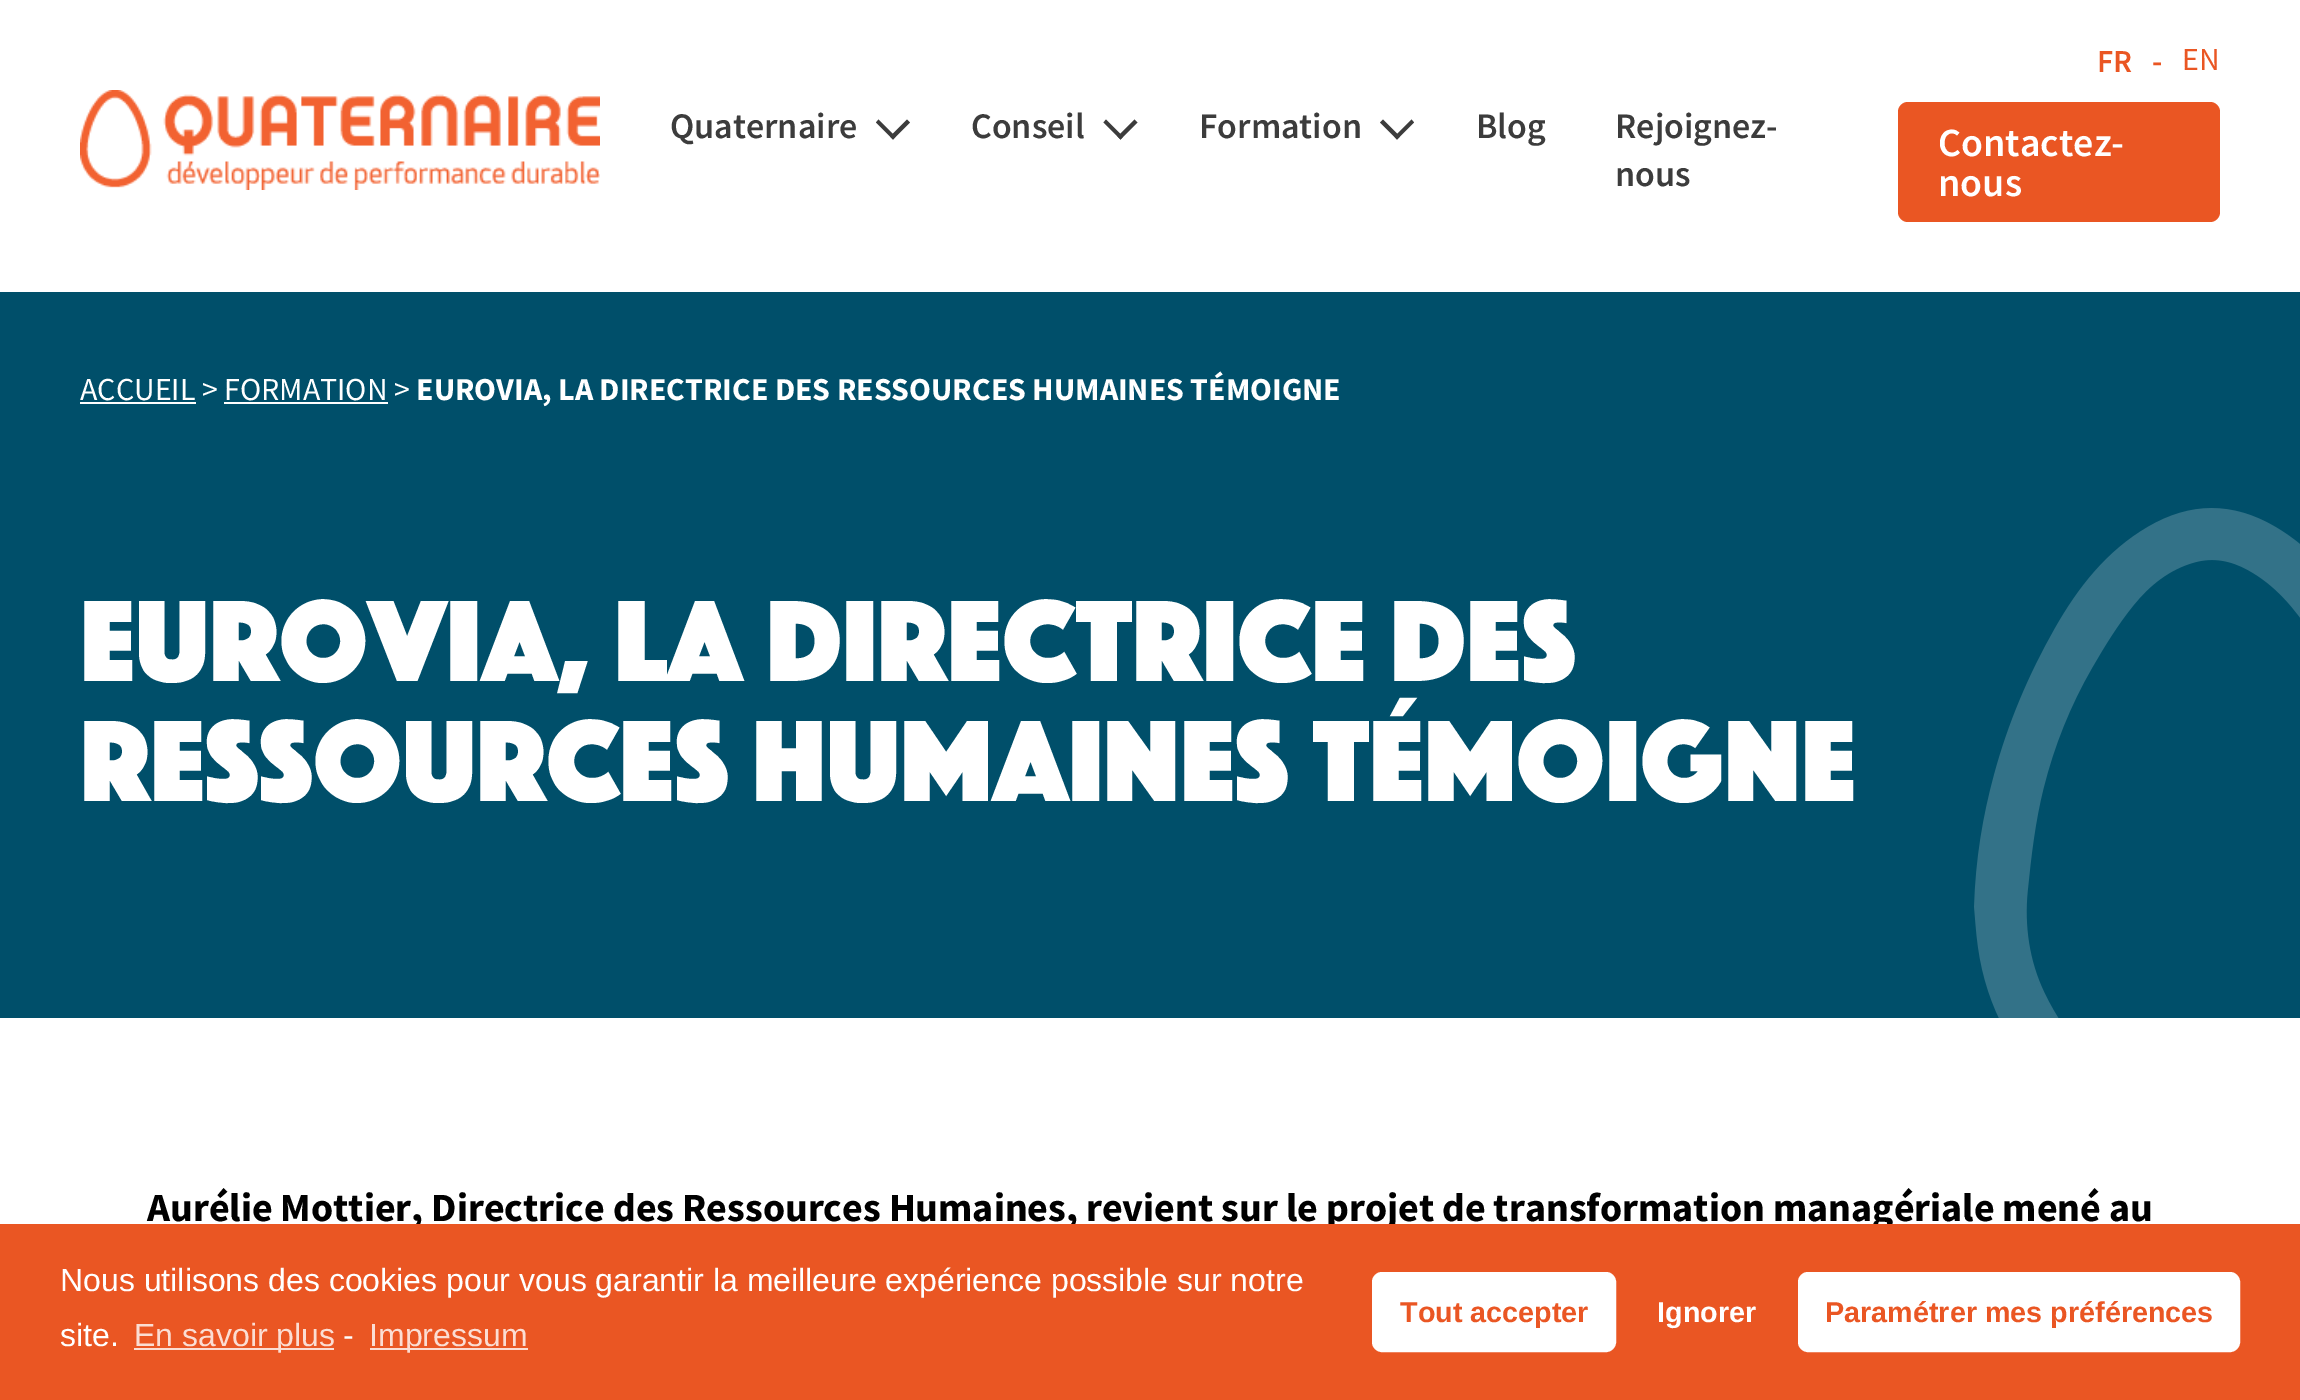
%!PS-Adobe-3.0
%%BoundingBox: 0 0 2300 1400
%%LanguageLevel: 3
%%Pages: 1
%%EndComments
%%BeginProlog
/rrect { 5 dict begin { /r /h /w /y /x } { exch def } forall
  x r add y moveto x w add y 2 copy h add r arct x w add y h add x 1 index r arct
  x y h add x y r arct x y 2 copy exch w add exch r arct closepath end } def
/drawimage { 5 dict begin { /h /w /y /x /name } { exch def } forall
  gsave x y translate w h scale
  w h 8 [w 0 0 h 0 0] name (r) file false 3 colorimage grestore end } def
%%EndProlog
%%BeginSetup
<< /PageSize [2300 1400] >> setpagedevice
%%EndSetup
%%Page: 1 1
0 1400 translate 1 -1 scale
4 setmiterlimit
1 setgray
0 0 2300 1400 rectfill
(images/1.raw) 80 90 520 100 drawimage
0.235 setgray
newpath 890 136.5 moveto 907 119.5 lineto 910 122.5 lineto 893 139.5 lineto closepath fill
newpath 876 122.5 moveto 878.5 119.5 lineto 895.5 136.5 lineto 893 139.5 lineto closepath fill
newpath 1117.5 136.5 moveto 1134.5 119.5 lineto 1137.5 122.5 lineto 1120.5 139.5 lineto closepath fill
newpath 1103.5 122.5 moveto 1106 119.5 lineto 1123 136.5 lineto 1120.5 139.5 lineto closepath fill
newpath 1394.5 136.5 moveto 1411.5 119.5 lineto 1414 122.5 lineto 1397 139.5 lineto closepath fill
newpath 1380 122.5 moveto 1383 119.5 lineto 1400 136.5 lineto 1397 139.5 lineto closepath fill
0.918 0.337 0.137 setrgbcolor
1898 102 322 120 10 rrect fill
0 0.31 0.416 setrgbcolor
0 292 2300 726 rectfill
1 setgray
80 402 116 2 rectfill
224 402 164 2 rectfill
(images/2.raw) 1974 508 326 510 drawimage
/SourceSansPro-SemiBold [32 0 0 -32 0 0] selectfont
0.918 0.337 0.137 setrgbcolor
2097 72 moveto (FR) show
2152 72 moveto (-) show
/SourceSansPro-Regular [32 0 0 -32 0 0] selectfont
2182 70 moveto (EN) show
/SourceSansPro-SemiBold [36 0 0 -36 0 0] selectfont
0.235 setgray
670 138 moveto (Quaternaire) show
971 138 moveto (Conseil) show
1199 138 moveto (Formation) show
1476 138 moveto (Blog) show
1615 138 moveto (Rejoignez-) show
1615 186 moveto (nous) show
/SourceSansPro-SemiBold [40 0 0 -40 0 0] selectfont
1 setgray
1938 156 moveto (Contactez-) show
1938 196 moveto (nous) show
/SourceSansPro-Regular [32 0 0 -32 0 0] selectfont
80 400 moveto (ACCUEIL > FORMATION >) show
/SourceSansPro-Bold [32 0 0 -32 0 0] selectfont
416 400 moveto (EUROVIA, LA DIRECTRICE DES RESSOURCES HUMAINES TÉMOIGNE) show
/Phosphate-Regular [120 0 0 -120 0 0] selectfont
80 681 moveto (Eurovia, la Directrice des) show
80 801 moveto (Ressources Humaines témoigne) show
/SourceSansPro-Bold [40 0 0 -40 0 0] selectfont
0 setgray
147 1221 moveto (Aurélie Mottier, Directrice des Ressources Humaines, revient sur le projet de transformation managériale mené au) show
0.918 0.337 0.137 setrgbcolor
0 1224 2300 176 rectfill
/LiberationSans-Regular [32 0 0 -32 0 0] selectfont
1 setgray
60 1291 moveto (Nous utilisons des cookies pour vous garantir la meilleure expérience possible sur notre) show
60 1346 moveto (site.) show
0.984 0.867 0.827 setrgbcolor
134 1348 200 2 rectfill
134 1346 moveto (En savoir plus) show
1 setgray
343 1346 moveto (-) show
0.984 0.867 0.827 setrgbcolor
370 1348 158 2 rectfill
369 1346 moveto (Impressum) show
1 setgray
1374 1274 240 76 8 rrect gsave fill grestore
4 setlinewidth
stroke
/LiberationSans-Bold [28.75 0 0 -28.75 0 0] selectfont
0.918 0.337 0.137 setrgbcolor
1400 1322 moveto (Tout accepter) show
1 setgray
1657 1322 moveto (Ignorer) show
1800 1274 438 76 8 rrect gsave fill grestore
stroke
0.918 0.337 0.137 setrgbcolor
1825 1322 moveto (Paramétrer mes préférences) show
showpage
%%EOF
